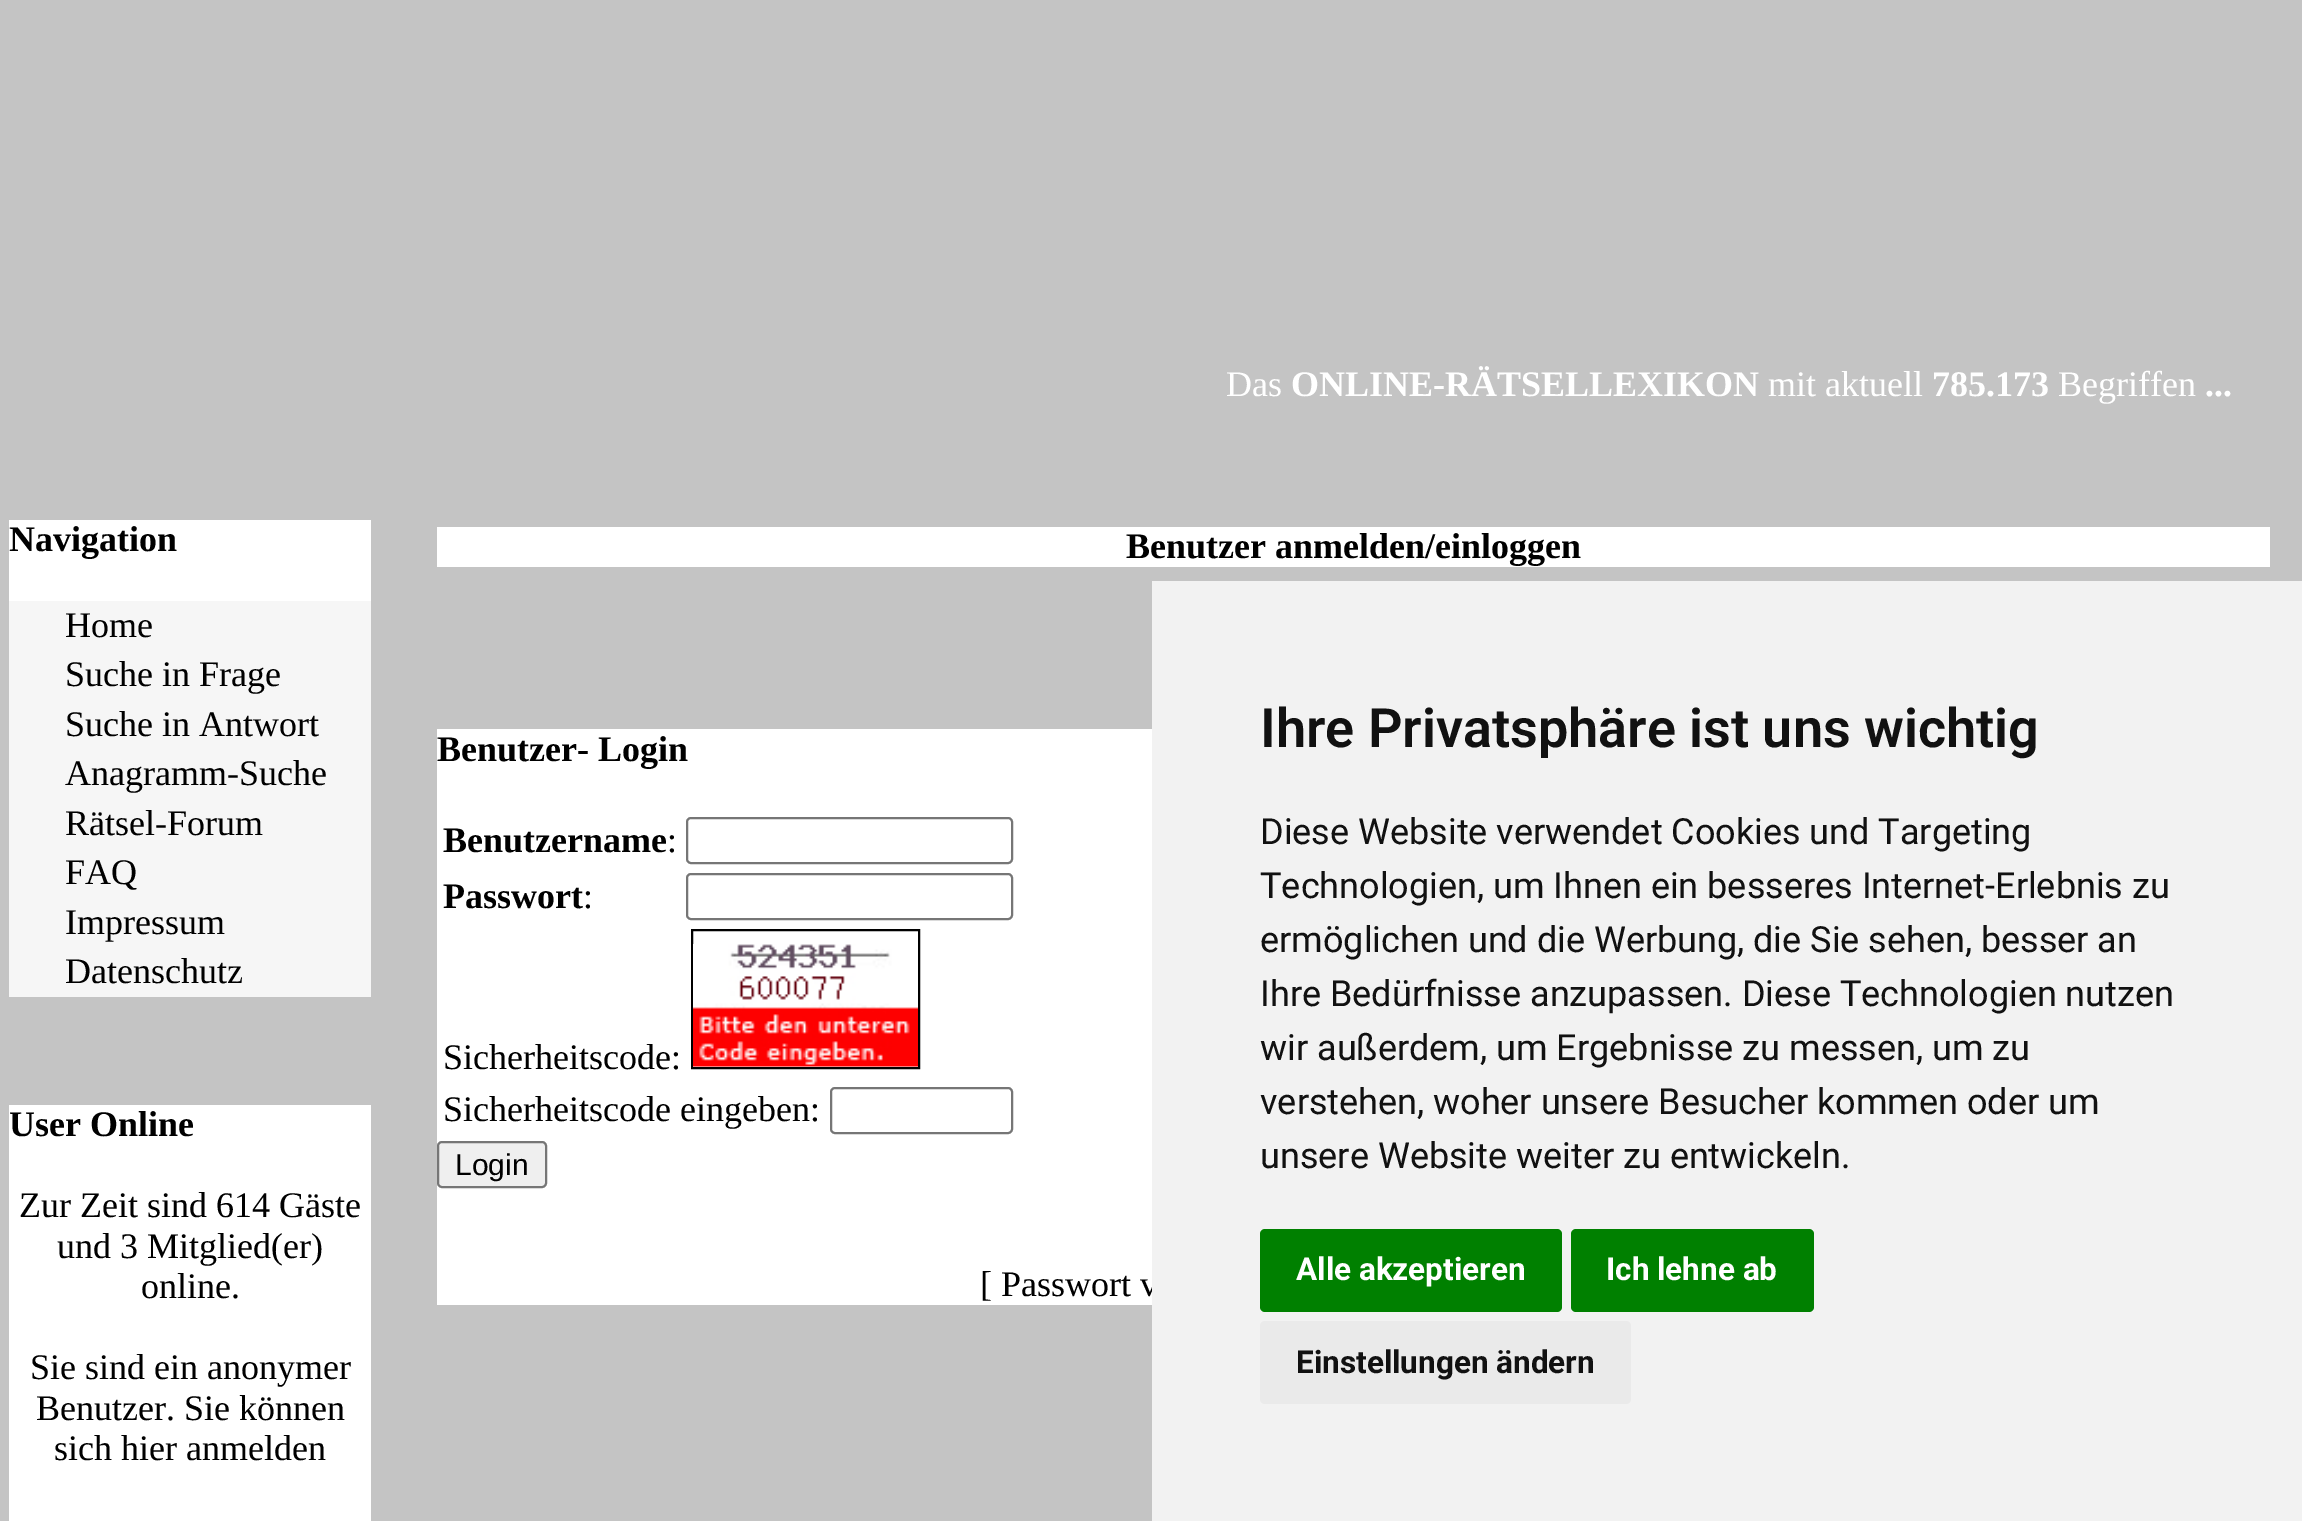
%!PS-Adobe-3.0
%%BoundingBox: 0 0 2302 1521
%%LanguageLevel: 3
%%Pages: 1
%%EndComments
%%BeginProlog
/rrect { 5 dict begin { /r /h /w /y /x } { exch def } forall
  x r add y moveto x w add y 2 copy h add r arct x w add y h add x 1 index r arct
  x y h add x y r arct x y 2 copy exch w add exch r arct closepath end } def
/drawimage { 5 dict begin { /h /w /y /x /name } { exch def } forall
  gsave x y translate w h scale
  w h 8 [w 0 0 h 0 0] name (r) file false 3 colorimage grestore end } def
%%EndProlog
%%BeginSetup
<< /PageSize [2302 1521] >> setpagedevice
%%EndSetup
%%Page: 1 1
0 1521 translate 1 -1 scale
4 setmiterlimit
0.769 setgray
0 0 2302 1521 rectfill
1 setgray
9 520 362 81 rectfill
0.965 setgray
9 601 362 396 rectfill
1 setgray
9 1105 362 416 rectfill
437 527 1833 40 rectfill
437 729 715 576 rectfill
0.463 setgray
2 setlinewidth
687 818 325 45 4 rrect stroke
687 874 325 45 4 rrect stroke
0 setgray
692 930 227 138 rectstroke
(images/1.raw) 693 944 225 123 drawimage
0.463 setgray
831 1088 181 45 4 rrect stroke
0.937 setgray
438 1142 108 45 4 rrect gsave fill grestore
0.463 setgray
stroke
/LiberationSerif-Regular [36 0 0 -36 0 0] selectfont
1 setgray
1226 396 moveto (Das) show
/LiberationSerif-Bold [36 0 0 -36 0 0] selectfont
1291 396 moveto (ONLINE-RÄTSELLEXIKON) show
/LiberationSerif-Regular [36 0 0 -36 0 0] selectfont
1768 396 moveto (mit aktuell) show
/LiberationSerif-Bold [36 0 0 -36 0 0] selectfont
1932 396 moveto (785.173) show
/LiberationSerif-Regular [36 0 0 -36 0 0] selectfont
2058 396 moveto (Begriffen) show
/LiberationSerif-Bold [36 0 0 -36 0 0] selectfont
2205 396 moveto (...) show
0 setgray
9 551 moveto (Navigation) show
/LiberationSerif-Regular [36 0 0 -36 0 0] selectfont
65 637 moveto (Home) show
65 686 moveto (Suche in Frage) show
65 736 moveto (Suche in Antwort) show
65 785 moveto (Anagramm-Suche) show
65 835 moveto (Rätsel-Forum) show
65 884 moveto (FAQ) show
65 934 moveto (Impressum) show
65 983 moveto (Datenschutz) show
/LiberationSerif-Bold [36 0 0 -36 0 0] selectfont
9 1136 moveto (User Online) show
/LiberationSerif-Regular [36 0 0 -36 0 0] selectfont
19 1217 moveto (Zur Zeit sind 614 Gäste) show
57 1258 moveto (und 3 Mitglied\(er\)) show
141 1298 moveto (online.) show
30 1379 moveto (Sie sind ein anonymer) show
36 1420 moveto (Benutzer. Sie können) show
54 1460 moveto (sich hier anmelden) show
/LiberationSerif-Bold [36 0 0 -36 0 0] selectfont
1126 558 moveto (Benutzer anmelden/einloggen) show
437 761 moveto (Benutzer- Login) show
443 852 moveto (Benutzername) show
/LiberationSerif-Regular [36 0 0 -36 0 0] selectfont
667 852 moveto (:) show
/LiberationSerif-Bold [36 0 0 -36 0 0] selectfont
443 908 moveto (Passwort) show
/LiberationSerif-Regular [36 0 0 -36 0 0] selectfont
583 908 moveto (:) show
443 1069 moveto (Sicherheitscode:) show
443 1121 moveto (Sicherheitscode eingeben:) show
/LiberationSans-Regular [30 0 0 -30 0 0] selectfont
455 1175 moveto (Login) show
/LiberationSerif-Regular [36 0 0 -36 0 0] selectfont
980 1296 moveto ([ Passwort v) show
0.949 setgray
1152 581 1150 940 rectfill
/Roboto-SemiBold [54 0 0 -54 0 0] selectfont
0.067 setgray
1260 747 moveto (Ihre Privatsphäre ist uns wichtig) show
/Roboto-Regular [36 0 0 -36 0 0] selectfont
1260 844 moveto (Diese Website verwendet Cookies und Targeting) show
1260 898 moveto (Technologien, um Ihnen ein besseres Internet-Erlebnis zu) show
1260 952 moveto (ermöglichen und die Werbung, die Sie sehen, besser an) show
1260 1006 moveto (Ihre Bedürfnisse anzupassen. Diese Technologien nutzen) show
1260 1060 moveto (wir außerdem, um Ergebnisse zu messen, um zu) show
1260 1114 moveto (verstehen, woher unsere Besucher kommen oder um) show
1260 1168 moveto (unsere Website weiter zu entwickeln.) show
0 0.502 0 setrgbcolor
1260 1229 302 83 5 rrect fill
/Roboto-Bold [31.5 0 0 -31.5 0 0] selectfont
1 setgray
1296 1280 moveto (Alle akzeptieren) show
0 0.502 0 setrgbcolor
1571 1229 243 83 5 rrect fill
1 setgray
1606 1280 moveto (Ich lehne ab) show
0.918 setgray
1260 1321 371 83 5 rrect fill
0.067 setgray
1296 1373 moveto (Einstellungen ändern) show
showpage
%%EOF
